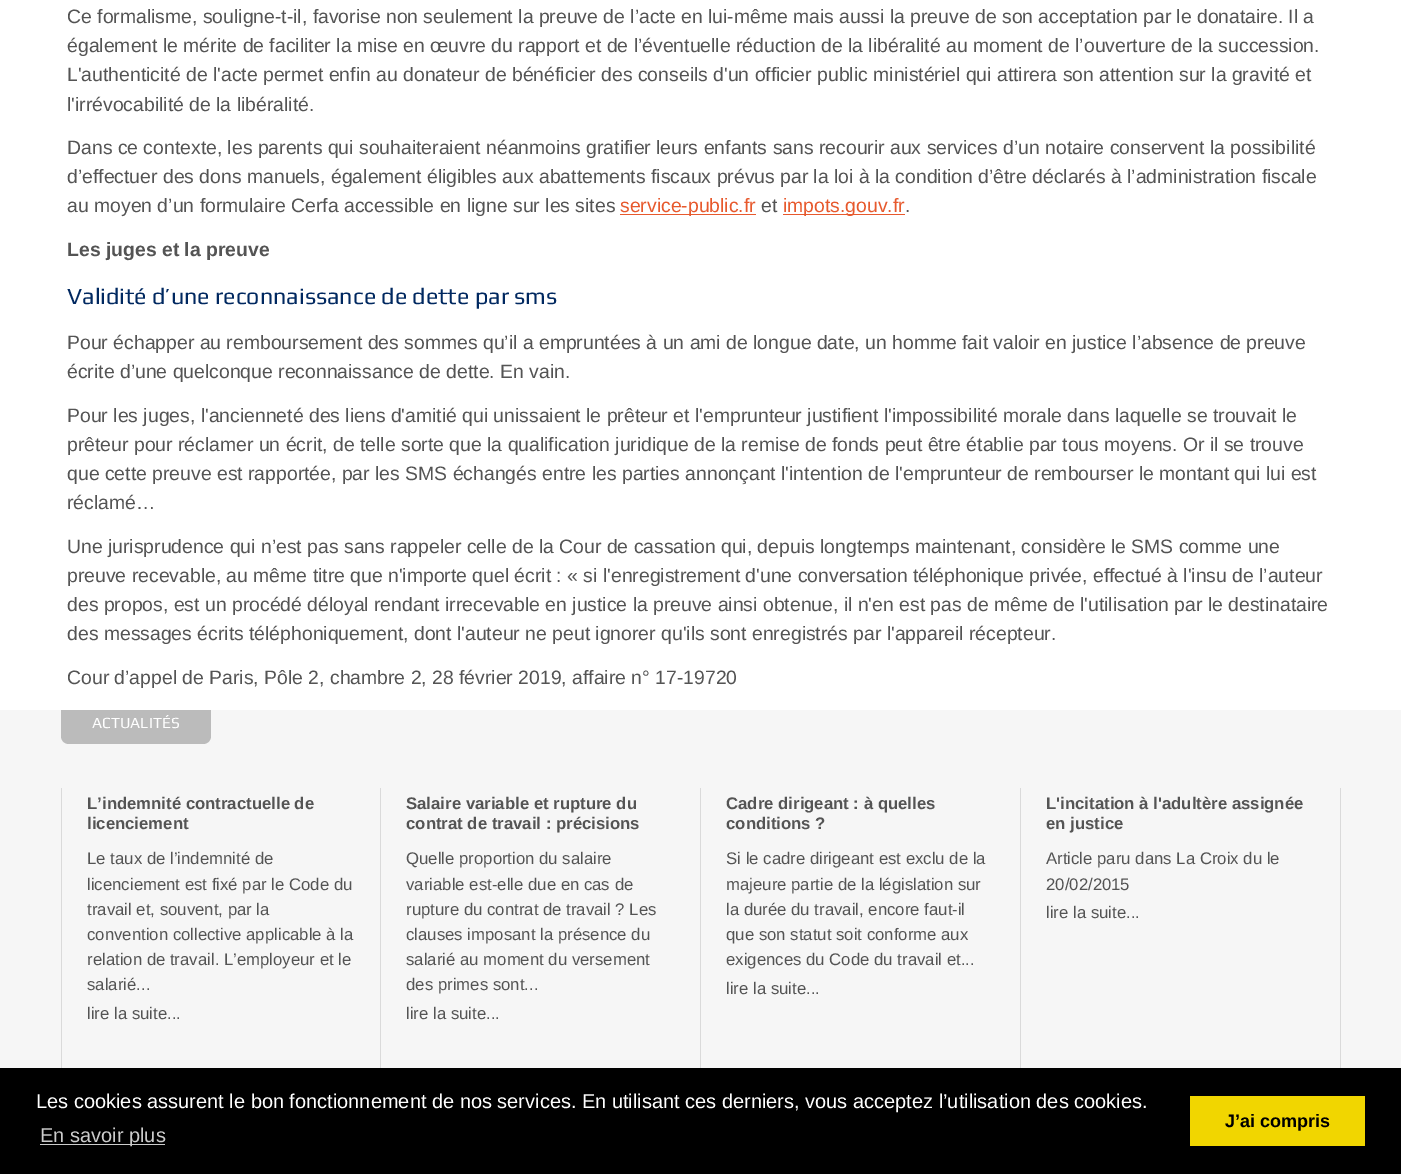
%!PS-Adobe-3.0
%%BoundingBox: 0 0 1401 1174
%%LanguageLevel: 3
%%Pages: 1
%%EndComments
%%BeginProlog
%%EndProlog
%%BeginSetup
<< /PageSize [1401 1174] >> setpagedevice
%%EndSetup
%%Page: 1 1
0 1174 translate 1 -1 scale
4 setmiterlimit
1 setgray
0 0 1401 1174 rectfill
0.906 0.349 0.176 setrgbcolor
620 214 136 1 rectfill
783 214 122 1 rectfill
0.965 setgray
0 710 1401 358 rectfill
0.733 setgray
newpath 61 710 moveto 211 710 lineto 211 736 lineto 211 740.5 207.5 744 203 744 curveto 69 744 lineto 64.5 744 61 740.5 61 736 curveto closepath fill
0.855 setgray
380 788 1 280 rectfill
61 788 1 280 rectfill
700 788 1 280 rectfill
1020 788 1 280 rectfill
1340 788 1 280 rectfill
0 setgray
0 1068 1401 106 rectfill
0.8 setgray
40 1144 125 1 rectfill
0.945 0.839 0 setrgbcolor
1190 1096 175 50 rectfill
/LiberationSans-Regular [19.38 0 0 -19.38 0 0] selectfont
0.329 setgray
67 23 moveto (Ce formalisme, souligne-t-il, favorise non seulement la preuve de l’acte en lui-même mais aussi la preuve de son acceptation par le donataire. Il a) show
67 52 moveto (également le mérite de faciliter la mise en œuvre du rapport et de l’éventuelle réduction de la libéralité au moment de l’ouverture de la succession.) show
67 81 moveto (L'authenticité de l'acte permet enfin au donateur de bénéficier des conseils d'un officier public ministériel qui attirera son attention sur la gravité et) show
67 111 moveto (l'irrévocabilité de la libéralité.) show
67 154 moveto (Dans ce contexte, les parents qui souhaiteraient néanmoins gratifier leurs enfants sans recourir aux services d’un notaire conservent la possibilité) show
67 183 moveto (d’effectuer des dons manuels, également éligibles aux abattements fiscaux prévus par la loi à la condition d’être déclarés à l’administration fiscale) show
67 212 moveto (au moyen d’un formulaire Cerfa accessible en ligne sur les sites) show
0.906 0.349 0.176 setrgbcolor
620 212 moveto (service-public.fr) show
0.329 setgray
761 212 moveto (et) show
0.906 0.349 0.176 setrgbcolor
783 212 moveto (impots.gouv.fr) show
0.329 setgray
905 212 moveto (.) show
/LiberationSans-Bold [19.38 0 0 -19.38 0 0] selectfont
67 256 moveto (Les juges et la preuve) show
/Play-Regular [23.25 0 0 -23.25 0 0] selectfont
0 0.157 0.376 setrgbcolor
67 304 moveto (Validité d’une reconnaissance de dette par sms) show
/LiberationSans-Regular [19.38 0 0 -19.38 0 0] selectfont
0.329 setgray
67 349 moveto (Pour échapper au remboursement des sommes qu’il a empruntées à un ami de longue date, un homme fait valoir en justice l’absence de preuve) show
67 378 moveto (écrite d’une quelconque reconnaissance de dette. En vain.) show
67 422 moveto (Pour les juges, l'ancienneté des liens d'amitié qui unissaient le prêteur et l'emprunteur justifient l'impossibilité morale dans laquelle se trouvait le) show
67 451 moveto (prêteur pour réclamer un écrit, de telle sorte que la qualification juridique de la remise de fonds peut être établie par tous moyens. Or il se trouve) show
67 480 moveto (que cette preuve est rapportée, par les SMS échangés entre les parties annonçant l'intention de l'emprunteur de rembourser le montant qui lui est) show
67 509 moveto (réclamé…) show
67 553 moveto (Une jurisprudence qui n’est pas sans rappeler celle de la Cour de cassation qui, depuis longtemps maintenant, considère le SMS comme une) show
67 582 moveto (preuve recevable, au même titre que n'importe quel écrit : « si l'enregistrement d'une conversation téléphonique privée, effectué à l'insu de l’auteur) show
67 611 moveto (des propos, est un procédé déloyal rendant irrecevable en justice la preuve ainsi obtenue, il n'en est pas de même de l'utilisation par le destinataire) show
67 640 moveto (des messages écrits téléphoniquement, dont l'auteur ne peut ignorer qu'ils sont enregistrés par l'appareil récepteur.) show
67 684 moveto (Cour d’appel de Paris, Pôle 2, chambre 2, 28 février 2019, affaire n° 17-19720) show
/Play-Regular [15.5 0 0 -15.5 0 0] selectfont
1 setgray
92 728 moveto (ACTUALITÉS) show
/LiberationSans-Bold [16.75 0 0 -16.75 0 0] selectfont
0.329 setgray
87 809 moveto (L’indemnité contractuelle de) show
87 829 moveto (licenciement) show
/LiberationSans-Regular [16.75 0 0 -16.75 0 0] selectfont
87 864 moveto (Le taux de l’indemnité de) show
87 890 moveto (licenciement est fixé par le Code du) show
87 915 moveto (travail et, souvent, par la) show
87 940 moveto (convention collective applicable à la) show
87 965 moveto (relation de travail. L’employeur et le) show
87 990 moveto (salarié...) show
87 1019 moveto (lire la suite...) show
/LiberationSans-Bold [16.75 0 0 -16.75 0 0] selectfont
406 809 moveto (Salaire variable et rupture du) show
406 829 moveto (contrat de travail : précisions) show
/LiberationSans-Regular [16.75 0 0 -16.75 0 0] selectfont
406 864 moveto (Quelle proportion du salaire) show
406 890 moveto (variable est-elle due en cas de) show
406 915 moveto (rupture du contrat de travail ? Les) show
406 940 moveto (clauses imposant la présence du) show
406 965 moveto (salarié au moment du versement) show
406 990 moveto (des primes sont...) show
406 1019 moveto (lire la suite...) show
/LiberationSans-Bold [16.75 0 0 -16.75 0 0] selectfont
726 809 moveto (Cadre dirigeant : à quelles) show
726 829 moveto (conditions ?) show
/LiberationSans-Regular [16.75 0 0 -16.75 0 0] selectfont
726 864 moveto (Si le cadre dirigeant est exclu de la) show
726 890 moveto (majeure partie de la législation sur) show
726 915 moveto (la durée du travail, encore faut-il) show
726 940 moveto (que son statut soit conforme aux) show
726 965 moveto (exigences du Code du travail et...) show
726 994 moveto (lire la suite...) show
/LiberationSans-Bold [16.75 0 0 -16.75 0 0] selectfont
1046 809 moveto (L'incitation à l'adultère assignée) show
1046 829 moveto (en justice) show
/LiberationSans-Regular [16.75 0 0 -16.75 0 0] selectfont
1046 864 moveto (Article paru dans La Croix du le) show
1046 890 moveto (20/02/2015) show
1046 918 moveto (lire la suite...) show
/LiberationSans-Regular [20 0 0 -20 0 0] selectfont
1 setgray
36 1108 moveto (Les cookies assurent le bon fonctionnement de nos services. En utilisant ces derniers, vous acceptez l’utilisation des cookies.) show
0.8 setgray
40 1142 moveto (En savoir plus) show
/LiberationSans-Bold [18 0 0 -18 0 0] selectfont
0 setgray
1225 1127 moveto (J’ai compris) show
showpage
%%EOF
